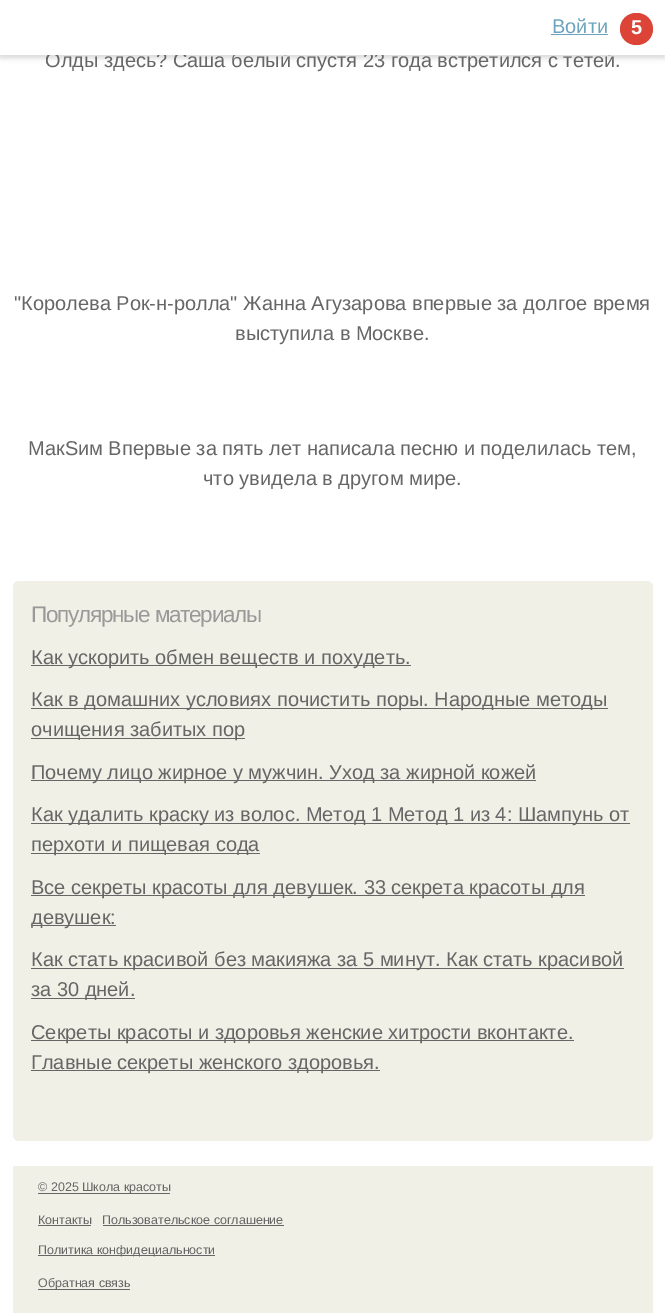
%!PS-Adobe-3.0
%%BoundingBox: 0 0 665 1313
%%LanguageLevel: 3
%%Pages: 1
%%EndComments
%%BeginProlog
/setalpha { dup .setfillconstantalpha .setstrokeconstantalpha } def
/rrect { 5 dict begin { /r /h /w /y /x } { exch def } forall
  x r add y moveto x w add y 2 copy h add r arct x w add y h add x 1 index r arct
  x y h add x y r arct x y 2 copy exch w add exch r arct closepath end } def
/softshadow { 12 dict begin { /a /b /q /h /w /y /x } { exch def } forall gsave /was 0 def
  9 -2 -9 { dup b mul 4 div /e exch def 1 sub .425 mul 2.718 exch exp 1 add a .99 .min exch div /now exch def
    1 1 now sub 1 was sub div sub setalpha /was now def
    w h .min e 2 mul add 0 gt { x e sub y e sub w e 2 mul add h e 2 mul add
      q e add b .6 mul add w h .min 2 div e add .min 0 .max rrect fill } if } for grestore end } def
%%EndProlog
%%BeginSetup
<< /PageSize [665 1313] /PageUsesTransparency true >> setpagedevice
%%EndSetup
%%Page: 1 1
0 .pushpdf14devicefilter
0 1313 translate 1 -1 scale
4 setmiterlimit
1 setgray
0 0 665 1313 rectfill
0 setgray
0 3 665 55 0 2.5 0.15 softshadow
0.941 0.941 0.906 setrgbcolor
13 581 640 560 6 rrect fill
0.4 setgray
31 665 380 1 rectfill
31 708 577 1 rectfill
31 738 214 1 rectfill
31 780 505 1 rectfill
31 823 599 1 rectfill
31 853 229 1 rectfill
31 895 554 1 rectfill
31 925 85 1 rectfill
31 968 593 1 rectfill
31 998 104 1 rectfill
31 1040 543 1 rectfill
31 1070 349 1 rectfill
0.941 0.941 0.906 setrgbcolor
13 1166 640 147 rectfill
0.4 setgray
38 1193 132 1 rectfill
38 1225 53 1 rectfill
103 1225 181 1 rectfill
38 1255 177 1 rectfill
38 1289 92 1 rectfill
/LiberationSans-Regular [20 0 0 -20 0 0] selectfont
45 67 moveto (Олды здесь? Саша белый спустя 23 года встретился с тётей.) show
1 setgray
0 0 665 55 rectfill
0.427 0.639 0.741 setrgbcolor
552 33 moveto (Войти) show
551 34 57 1 rectfill
0.859 0.267 0.216 setrgbcolor
620 13 33 32 16 rrect fill
/LiberationSans-Bold [20 0 0 -20 0 0] selectfont
1 setgray
631 34 moveto (5) show
/LiberationSans-Regular [20 0 0 -20 0 0] selectfont
0.4 setgray
14 310 moveto ("Королева Рок-н-ролла" Жанна Агузарова впервые за долгое время) show
235 340 moveto (выступила в Москве.) show
28 455 moveto (МaкSим Впервые за пять лет написала песню и поделилась тем,) show
203 485 moveto (что увидела в другом мире.) show
/LiberationSans-Regular [22.5 0 0 -22.5 0 0] selectfont
0.6 setgray
31 622 moveto -1.25 0 (Популярные материалы) ashow
/LiberationSans-Regular [20 0 0 -20 0 0] selectfont
0.4 setgray
31 664 moveto (Как ускорить обмен веществ и похудеть.) show
31 706 moveto (Как в домашних условиях почистить поры. Народные методы) show
31 736 moveto (очищения забитых пор) show
31 779 moveto (Почему лицо жирное у мужчин. Уход за жирной кожей) show
31 821 moveto (Как удалить краску из волос. Метод 1 Метод 1 из 4: Шампунь от) show
31 851 moveto (перхоти и пищевая сода) show
31 894 moveto (Все секреты красоты для девушек. 33 секрета красоты для) show
31 924 moveto (девушек:) show
31 966 moveto (Как стать красивой без макияжа за 5 минут. Как стать красивой) show
31 996 moveto (за 30 дней.) show
31 1039 moveto (Секреты красоты и здоровья женские хитрости вконтакте.) show
31 1069 moveto (Главные секреты женского здоровья.) show
/LiberationSans-Regular [12.5 0 0 -12.5 0 0] selectfont
38 1191 moveto (© 2025 Школа красоты) show
38 1224 moveto (Контакты) show
102 1224 moveto (Пользовательское соглашение) show
38 1254 moveto (Политика конфидециальности) show
38 1287 moveto (Обратная связь) show
.poppdf14devicefilter showpage
%%EOF
